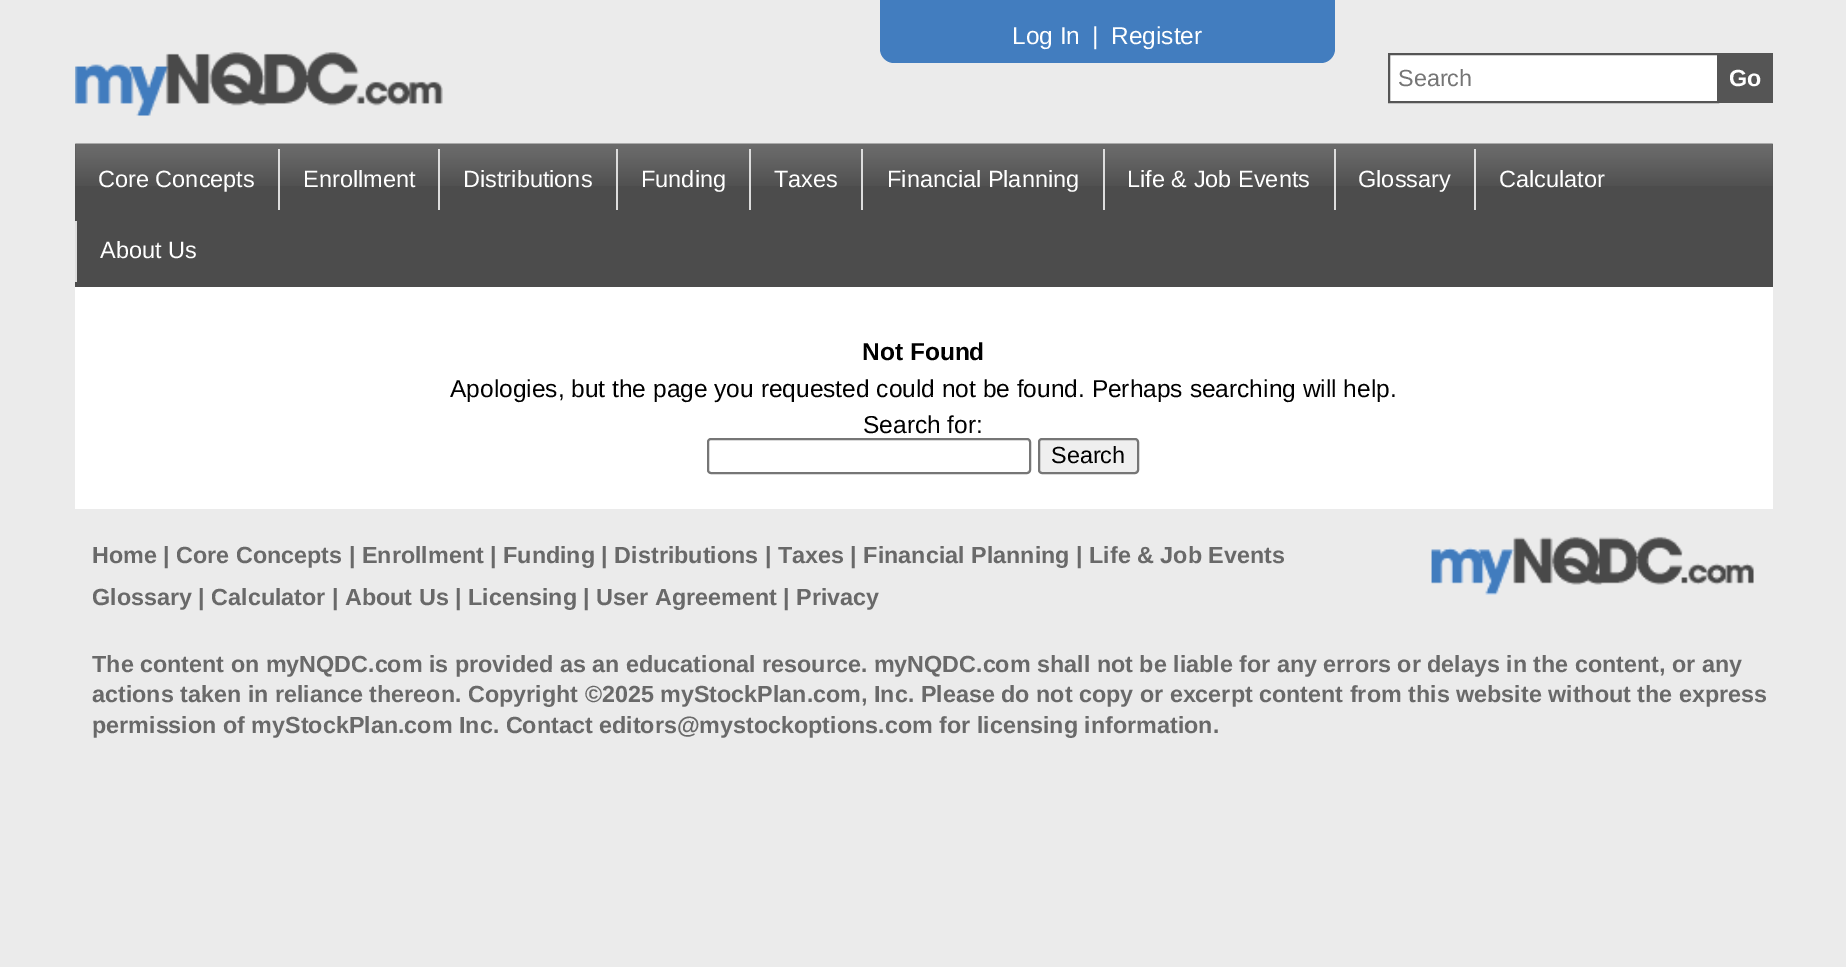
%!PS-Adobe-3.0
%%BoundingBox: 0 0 1846 967
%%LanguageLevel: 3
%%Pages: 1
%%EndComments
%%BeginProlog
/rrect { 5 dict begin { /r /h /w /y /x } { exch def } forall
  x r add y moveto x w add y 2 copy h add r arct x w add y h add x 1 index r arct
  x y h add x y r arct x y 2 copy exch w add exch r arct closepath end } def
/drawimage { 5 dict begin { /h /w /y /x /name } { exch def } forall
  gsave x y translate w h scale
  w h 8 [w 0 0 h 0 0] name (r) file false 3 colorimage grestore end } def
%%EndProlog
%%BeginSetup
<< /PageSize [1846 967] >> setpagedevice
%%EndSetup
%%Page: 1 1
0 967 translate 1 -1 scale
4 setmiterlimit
0.922 setgray
0 0 1846 967 rectfill
0.259 0.49 0.749 setrgbcolor
newpath 880 0 moveto 1335 0 lineto 1335 49 lineto 1335 56.5 1328.5 63 1321 63 curveto 894 63 lineto 886.5 63 880 56.5 880 49 curveto closepath fill
(images/1.raw) 75 52 368 64 drawimage
1 setgray
newpath 1389 54 moveto 1718 54 lineto 1718 102 lineto 1389 102 lineto closepath gsave fill grestore
0.333 setgray
2 setlinewidth
stroke
1719 53 54 50 rectfill
0.298 setgray
75 144 1698 143 rectfill
(images/2.raw) 75 143 1698 43 drawimage
0.867 setgray
278 149 2 61 rectfill
438 149 2 61 rectfill
616 149 2 61 rectfill
749 149 2 61 rectfill
861 149 2 61 rectfill
1103 149 2 61 rectfill
1334 149 2 61 rectfill
1474 149 2 61 rectfill
75 221 2 61 rectfill
1 setgray
75 287 1698 222 rectfill
0.463 setgray
708 439 322 34 3 rrect stroke
0.937 setgray
1039 439 99 34 3 rrect gsave fill grestore
0.463 setgray
stroke
(images/3.raw) 1431 536 323 59 drawimage
/LiberationSans-Regular [24.5 0 0 -24.5 0 0] selectfont
1 setgray
1012 44 moveto (Log In) show
1092 44 moveto (|) show
1111 44 moveto (Register) show
/LiberationSans-Regular [23.33 0 0 -23.33 0 0] selectfont
0.459 setgray
1398 86 moveto (Search) show
/LiberationSans-Bold [23.33 0 0 -23.33 0 0] selectfont
1 setgray
1729 86 moveto (Go) show
/LiberationSans-Regular [23.5 0 0 -23.5 0 0] selectfont
98 187 moveto (Core Concepts) show
303 187 moveto (Enrollment) show
463 187 moveto (Distributions) show
641 187 moveto (Funding) show
774 187 moveto (Taxes) show
887 187 moveto (Financial Planning) show
1127 187 moveto (Life & Job Events) show
1358 187 moveto (Glossary) show
1499 187 moveto (Calculator) show
100 258 moveto (About Us) show
/LiberationSans-Bold [24.5 0 0 -24.5 0 0] selectfont
0 setgray
862 360 moveto (Not Found) show
/LiberationSans-Regular [24.5 0 0 -24.5 0 0] selectfont
450 397 moveto (Apologies, but the page you requested could not be found. Perhaps searching will help.) show
863 433 moveto (Search for:) show
/LiberationSans-Regular [23.33 0 0 -23.33 0 0] selectfont
1051 463 moveto (Search) show
/LiberationSans-Bold [23.33 0 0 -23.33 0 0] selectfont
0.412 setgray
92 563 moveto (Home | Core Concepts | Enrollment | Funding | Distributions | Taxes | Financial Planning | Life & Job Events) show
92 605 moveto (Glossary | Calculator | About Us | Licensing | User Agreement | Privacy) show
92 672 moveto (The content on myNQDC.com is provided as an educational resource. myNQDC.com shall not be liable for any errors or delays in the content, or any) show
92 702 moveto (actions taken in reliance thereon. Copyright ©2025 myStockPlan.com, Inc. Please do not copy or excerpt content from this website without the express) show
92 733 moveto (permission of myStockPlan.com Inc. Contact editors@mystockoptions.com for licensing information.) show
showpage
%%EOF
